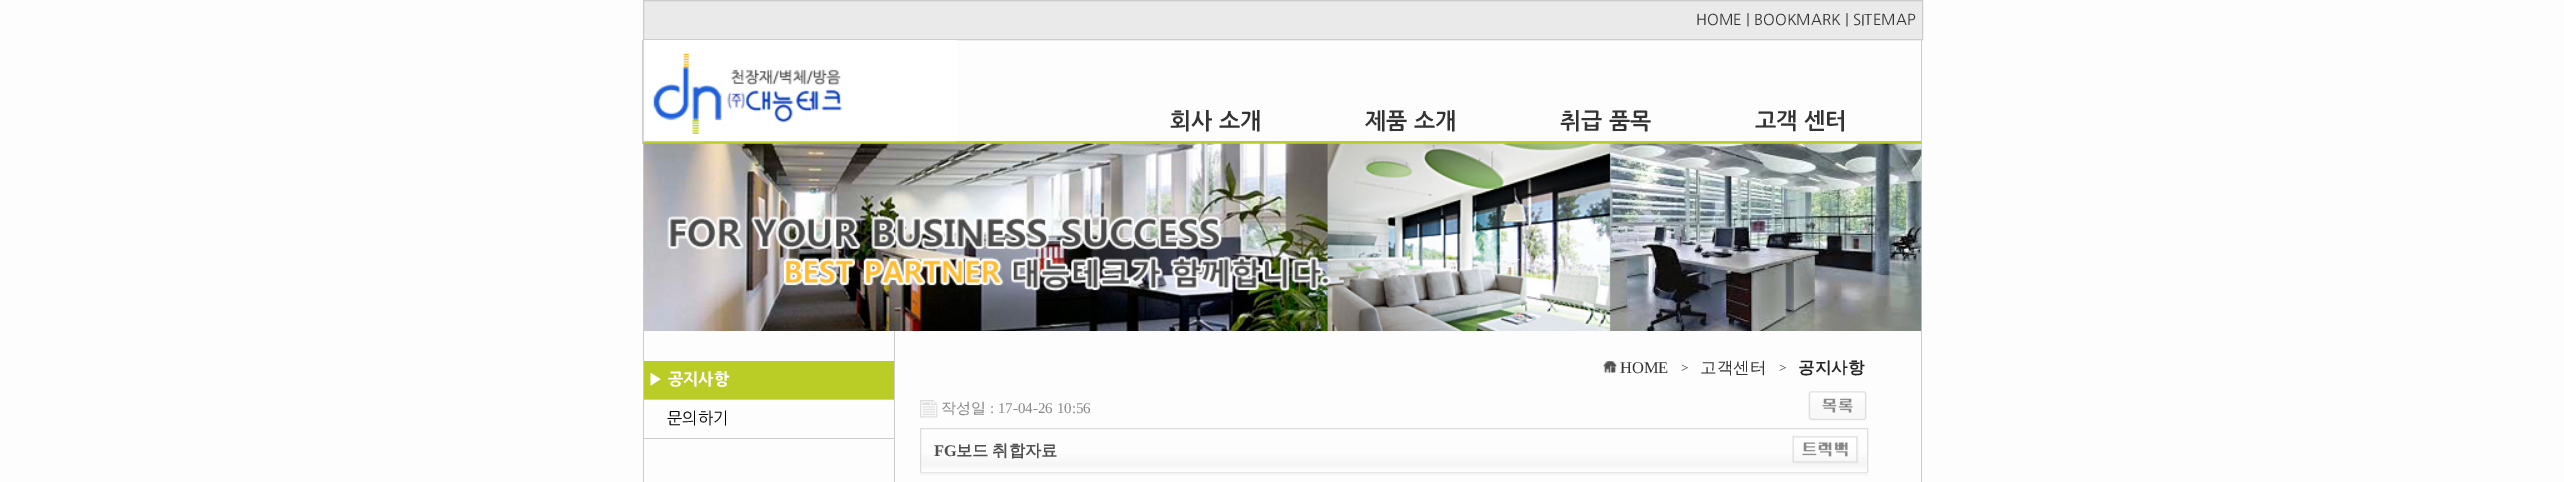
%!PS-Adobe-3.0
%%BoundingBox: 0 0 2564 482
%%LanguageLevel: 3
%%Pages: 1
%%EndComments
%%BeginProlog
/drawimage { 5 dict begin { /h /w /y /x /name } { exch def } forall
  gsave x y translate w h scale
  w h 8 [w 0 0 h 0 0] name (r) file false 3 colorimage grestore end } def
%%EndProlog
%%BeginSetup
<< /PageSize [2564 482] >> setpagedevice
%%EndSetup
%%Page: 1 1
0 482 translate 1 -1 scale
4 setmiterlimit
0.992 setgray
0 0 2564 482 rectfill
0.918 setgray
newpath 643.5 0.5 moveto 1922.5 0.5 lineto 1922.5 39.5 lineto 643.5 39.5 lineto closepath gsave fill grestore
0.8 setgray
stroke
newpath 1922 40 moveto 1922 144 lineto 1921 141 lineto 1921 40 lineto closepath fill
0.725 0.804 0.149 setrgbcolor
newpath 1922 144 moveto 642 144 lineto 644 141 lineto 1921 141 lineto closepath fill
0.8 setgray
newpath 642 144 moveto 642 40 lineto 644 40 lineto 644 141 lineto closepath fill
(images/1.raw) 643 40 314 102 drawimage
1921 144 1 338 rectfill
643 144 1 338 rectfill
(images/2.raw) 643 143 1279 188 drawimage
0.725 0.804 0.149 setrgbcolor
644 361 250 38 rectfill
0.8 setgray
644 399 250 1 rectfill
644 438 250 1 rectfill
894 331 1 151 rectfill
(images/3.raw) 1603 361 14 12 drawimage
(images/4.raw) 920 400 18 18 drawimage
(images/5.raw) 1808 391 59 30 drawimage
(images/6.raw) 921 454 946 15 drawimage
0.867 setgray
920.5 428.5 947 44 rectstroke
(images/7.raw) 1792 436 67 28 drawimage
(images/8.raw) 920 472 948 4 drawimage
/NanumGothic-Regular [15 0 0 -15 0 0] selectfont
0.2 setgray
1696 25 moveto (HOME | BOOKMARK | SITEMAP) show
/NanumGothic-Bold [22.5 0 0 -22.5 0 0] selectfont
1170 129 moveto (회사 소개) show
1365 129 moveto (제품 소개) show
1560 129 moveto (취급 품목) show
1755 129 moveto (고객 센터) show
/NanumGothic-ExtraBold [16.25 0 0 -16.25 0 0] selectfont
1 setgray
648 385 moveto (▶ 공지사항) show
/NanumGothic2-Regular [16.25 0 0 -16.25 0 0] selectfont
0 setgray
667 424 moveto (문의하기) show
/LiberationSerif-Regular [16.5 0 0 -16.5 0 0] selectfont
0.2 setgray
1620 373 moveto (HOME) show
/LiberationSerif-Regular [13 0 0 -13 0 0] selectfont
0.133 setgray
1681 372 moveto (>) show
/WenQuanYiZenHei-Medium [16.5 0 0 -16.5 0 0] selectfont
0.2 setgray
1700 373 moveto (고객센터) show
/LiberationSerif-Regular [13 0 0 -13 0 0] selectfont
0.133 setgray
1779 372 moveto (>) show
/WenQuanYiZenHei-Bold [16.5 0 0 -16.5 0 0] selectfont
1798 373 moveto (공지사항) show
/WenQuanYiZenHei-Medium [15 0 0 -15 0 0] selectfont
0.533 setgray
941 413 moveto (작성일) show
/LiberationSerif-Regular [15 0 0 -15 0 0] selectfont
990 413 moveto (: 17-04-26 10:56) show
/LiberationSerif-Bold [16.25 0 0 -16.25 0 0] selectfont
0.314 setgray
934 456 moveto (FG) show
/WenQuanYiZenHei-Bold [16.25 0 0 -16.25 0 0] selectfont
956 456 moveto -1 0 32 (보드 취합자료) widthshow
showpage
%%EOF
